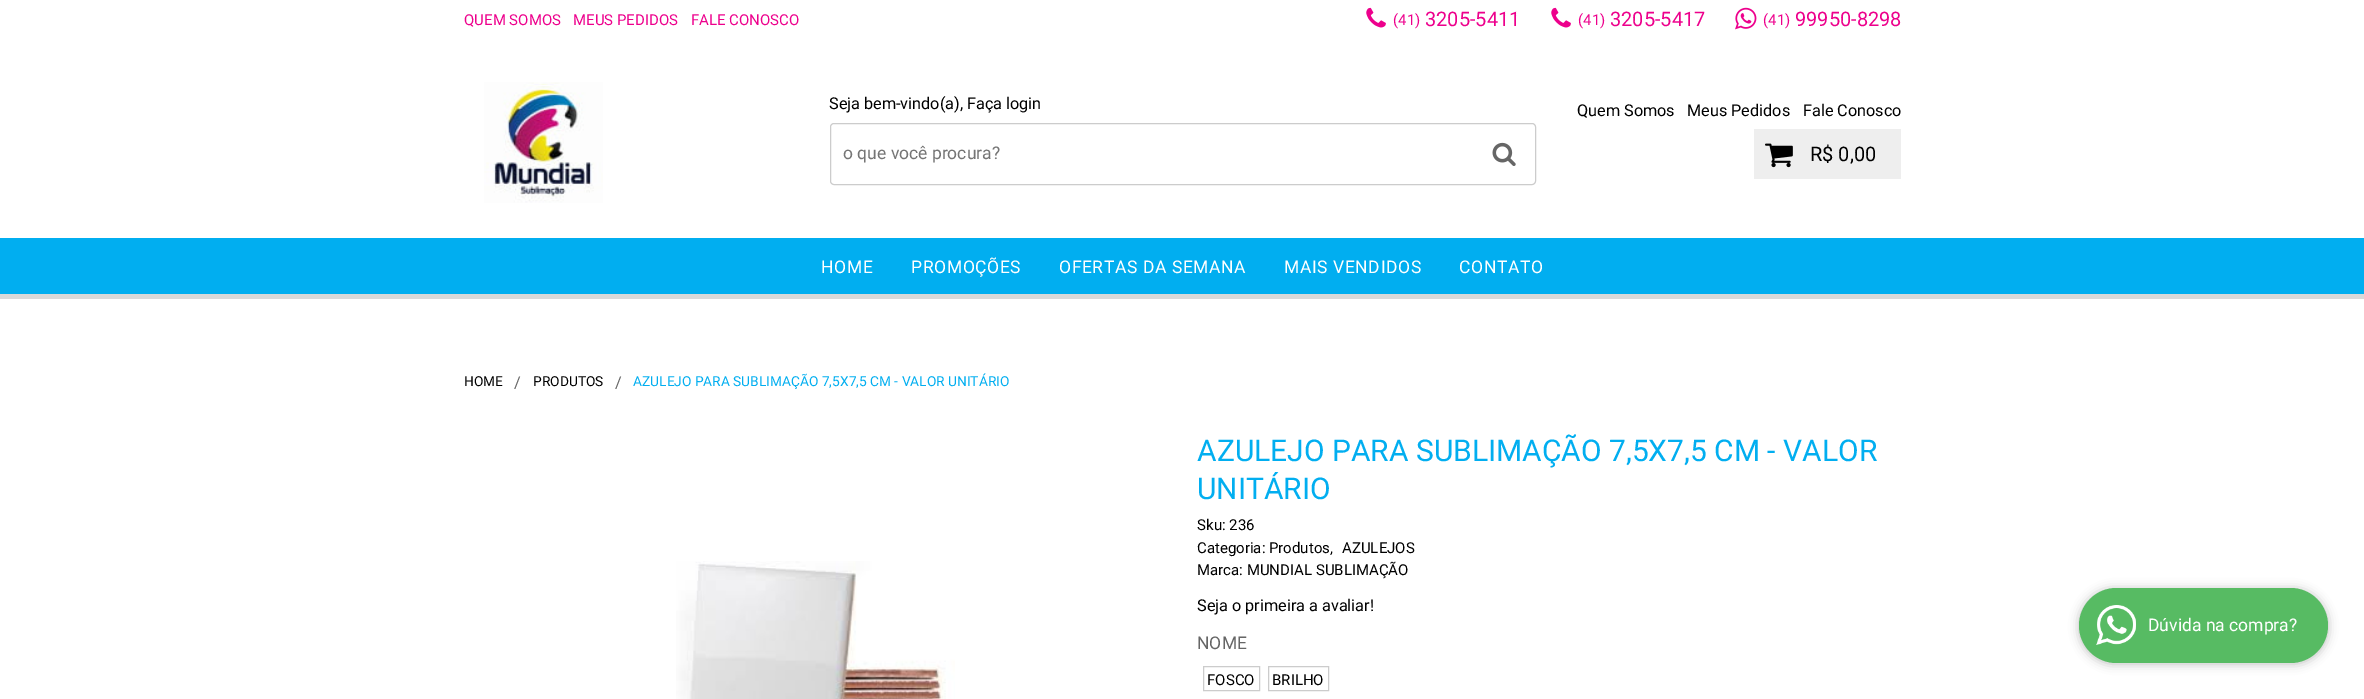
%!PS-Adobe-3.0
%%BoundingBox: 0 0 2364 699
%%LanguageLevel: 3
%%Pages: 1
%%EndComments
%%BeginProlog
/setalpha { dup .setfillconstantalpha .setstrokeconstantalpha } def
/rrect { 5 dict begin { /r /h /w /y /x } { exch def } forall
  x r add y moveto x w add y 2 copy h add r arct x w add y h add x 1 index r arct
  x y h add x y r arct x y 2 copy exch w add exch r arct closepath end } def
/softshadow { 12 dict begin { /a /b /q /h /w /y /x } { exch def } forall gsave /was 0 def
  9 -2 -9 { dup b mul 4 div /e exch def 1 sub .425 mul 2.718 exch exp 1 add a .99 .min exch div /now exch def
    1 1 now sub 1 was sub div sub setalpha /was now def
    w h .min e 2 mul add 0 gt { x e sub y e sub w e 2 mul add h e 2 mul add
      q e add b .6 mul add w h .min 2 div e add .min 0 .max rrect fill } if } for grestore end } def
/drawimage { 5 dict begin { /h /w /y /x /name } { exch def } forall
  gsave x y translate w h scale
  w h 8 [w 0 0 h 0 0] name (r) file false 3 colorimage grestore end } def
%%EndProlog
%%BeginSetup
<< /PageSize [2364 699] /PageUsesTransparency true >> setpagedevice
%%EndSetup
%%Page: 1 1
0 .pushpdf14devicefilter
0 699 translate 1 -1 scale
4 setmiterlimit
1 setgray
0 0 2364 699 rectfill
(images/1.raw) 1366 7 20 21 drawimage
(images/1.raw) 1551 7 20 21 drawimage
(images/2.raw) 1735 7 22 23 drawimage
(images/3.raw) 484 82 119 121 drawimage
0.8 setgray
830.5 123.5 705 61 3.5 rrect stroke
(images/4.raw) 1492 142 24 24 drawimage
0.933 setgray
1754 129 147 50 rectfill
(images/5.raw) 1765 143 28 25 drawimage
0.851 setgray
0 294 2364 5 rectfill
0.004 0.682 0.941 setrgbcolor
0 238 2364 56 rectfill
(images/6.raw) 676 561 279 138 drawimage
0.8 setgray
1203.5 666.5 56 24 rectstroke
1268.5 666.5 60 24 rectstroke
0 setgray
2079 589 249 75 37.5 5 0.25 softshadow
0.341 0.733 0.388 setrgbcolor
2079 588 249 75 37.5 rrect fill
(images/7.raw) 2096 605 40 40 drawimage
/Roboto-Regular [15 0 0 -15 0 0] selectfont
0.929 0 0.549 setrgbcolor
464 25 moveto (QUEM SOMOS) show
573 25 moveto (MEUS PEDIDOS) show
691 25 moveto (FALE CONOSCO) show
1393 25 moveto (\(41\)) show
/Roboto-Regular [20 0 0 -20 0 0] selectfont
1425 26 moveto (3205-5411) show
/Roboto-Regular [15 0 0 -15 0 0] selectfont
1578 25 moveto (\(41\)) show
/Roboto-Regular [20 0 0 -20 0 0] selectfont
1610 26 moveto (3205-5417) show
/Roboto-Regular [15 0 0 -15 0 0] selectfont
1763 25 moveto (\(41\)) show
/Roboto-Regular [20 0 0 -20 0 0] selectfont
1795 26 moveto (99950-8298) show
/Roboto-Regular [16.25 0 0 -16.25 0 0] selectfont
0 setgray
829 109 moveto (Seja bem-vindo\(a\), Faça login) show
/Roboto-Regular [17.5 0 0 -17.5 0 0] selectfont
0.459 setgray
843 159 moveto (o que você procura?) show
/Roboto-Regular [16.25 0 0 -16.25 0 0] selectfont
0 setgray
1577 116 moveto (Quem Somos) show
1687 116 moveto (Meus Pedidos) show
1803 116 moveto (Fale Conosco) show
/Roboto-Regular [20 0 0 -20 0 0] selectfont
1810 161 moveto (R$ 0,00) show
/Roboto-Regular [17.5 0 0 -17.5 0 0] selectfont
1 setgray
821 273 moveto 0.6 0 (HOME) ashow
911 273 moveto 0.6 0 (PROMOÇÕES) ashow
1059 273 moveto 0.6 0 (OFERTAS DA SEMANA) ashow
1284 273 moveto 0.6 0 (MAIS VENDIDOS) ashow
1459 273 moveto 0.6 0 (CONTATO) ashow
/Roboto-Regular [13.75 0 0 -13.75 0 0] selectfont
0 setgray
464 386 moveto (HOME) show
/Roboto-Regular [16.25 0 0 -16.25 0 0] selectfont
0.4 setgray
514 388 moveto (/) show
/Roboto-Regular [13.75 0 0 -13.75 0 0] selectfont
0 setgray
533 386 moveto (PRODUTOS) show
/Roboto-Regular [16.25 0 0 -16.25 0 0] selectfont
0.4 setgray
615 388 moveto (/) show
/Roboto-Regular [13.75 0 0 -13.75 0 0] selectfont
0.004 0.682 0.941 setrgbcolor
633 386 moveto (AZULEJO PARA SUBLIMAÇÃO 7,5X7,5 CM - VALOR UNITÁRIO) show
/Roboto-Regular [30 0 0 -30 0 0] selectfont
1197 461 moveto (AZULEJO PARA SUBLIMAÇÃO 7,5X7,5 CM - VALOR) show
1197 499 moveto (UNITÁRIO) show
/Roboto-Regular [15 0 0 -15 0 0] selectfont
0 setgray
1197 530 moveto (Sku: 236) show
1197 553 moveto (Categoria: Produtos,) show
1342 553 moveto (AZULEJOS) show
1197 575 moveto (Marca: MUNDIAL SUBLIMAÇÃO) show
/Roboto-Regular [16.25 0 0 -16.25 0 0] selectfont
1197 611 moveto (Seja o primeira a avaliar!) show
/Roboto-Regular [17.5 0 0 -17.5 0 0] selectfont
0.4 setgray
1197 649 moveto (NOME) show
/Roboto-Regular [15 0 0 -15 0 0] selectfont
0 setgray
1207 685 moveto (FOSCO) show
1272 685 moveto (BRILHO) show
/Roboto-Regular [17.5 0 0 -17.5 0 0] selectfont
1 setgray
2148 631 moveto (Dúvida na compra?) show
.poppdf14devicefilter showpage
%%EOF
